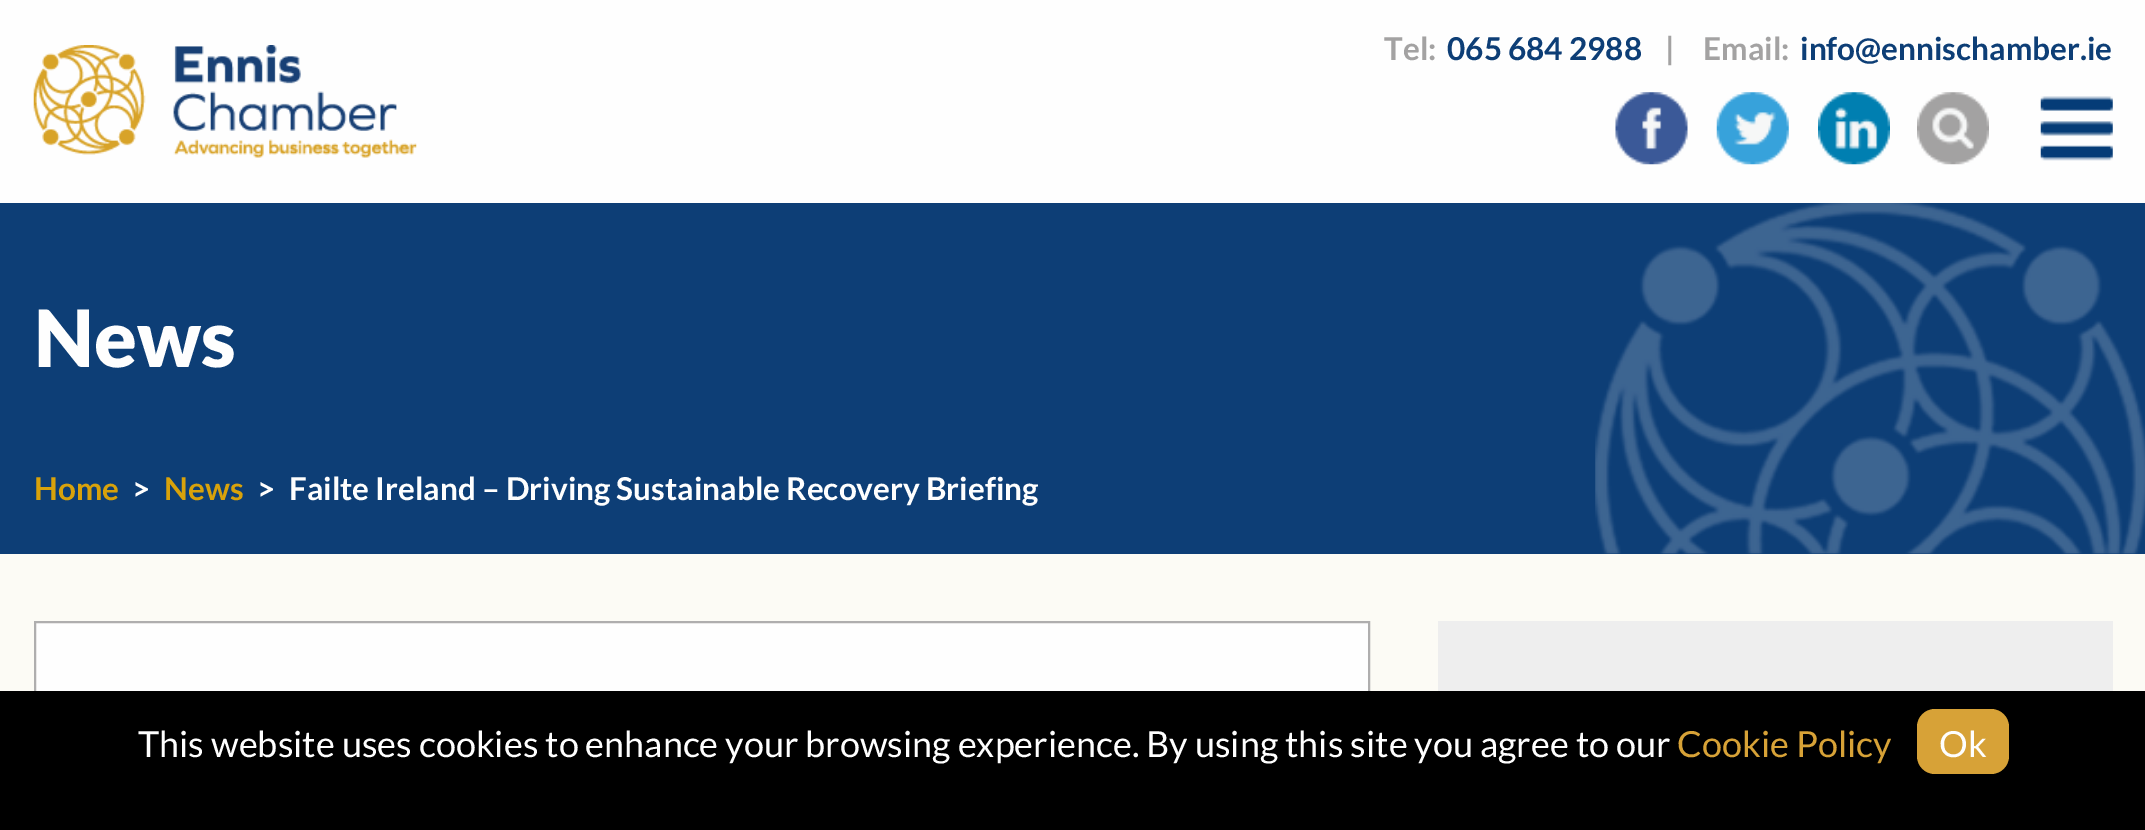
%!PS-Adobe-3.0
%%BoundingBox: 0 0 2145 830
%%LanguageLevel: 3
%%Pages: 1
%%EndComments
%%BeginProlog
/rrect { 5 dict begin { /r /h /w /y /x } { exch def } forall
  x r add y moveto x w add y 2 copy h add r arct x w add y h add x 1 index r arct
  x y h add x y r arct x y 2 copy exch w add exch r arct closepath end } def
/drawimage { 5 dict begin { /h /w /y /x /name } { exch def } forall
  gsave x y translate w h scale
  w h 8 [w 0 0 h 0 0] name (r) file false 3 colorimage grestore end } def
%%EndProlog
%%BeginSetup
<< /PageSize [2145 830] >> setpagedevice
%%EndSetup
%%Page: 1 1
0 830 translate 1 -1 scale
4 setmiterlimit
0.988 0.984 0.961 setrgbcolor
0 0 2145 830 rectfill
0.996 setgray
0 0 2145 203 rectfill
(images/1.raw) 33 45 384 113 drawimage
(images/2.raw) 1615 92 73 73 drawimage
(images/3.raw) 1716 92 73 73 drawimage
(images/4.raw) 1818 92 72 73 drawimage
(images/5.raw) 1917 92 72 73 drawimage
(images/6.raw) 2040 96 73 65 drawimage
0.051 0.243 0.463 setrgbcolor
0 203 2145 351 rectfill
(images/7.raw) 1595 203 550 351 drawimage
0.996 setgray
36 623 1332 68 rectfill
0.686 0.682 0.682 setrgbcolor
2 setlinewidth
35 622 1334 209 rectstroke
0.933 setgray
1438 621 675 70 rectfill
0 setgray
0 691 2145 139 rectfill
0.843 0.635 0.216 setrgbcolor
1917 709 92 65 18 rrect fill
/Lato-Bold [31.5 0 0 -31.5 0 0] selectfont
0.639 0.635 0.635 setrgbcolor
1384 60 moveto (Tel:) show
0.051 0.243 0.463 setrgbcolor
1447 60 moveto (065 684 2988) show
0.639 0.635 0.635 setrgbcolor
1665 60 moveto (|) show
1703 60 moveto (Email:) show
0.051 0.243 0.463 setrgbcolor
1800 60 moveto (info@ennischamber.ie) show
/Lato-Black [79 0 0 -79 0 0] selectfont
0.996 setgray
34 367 moveto (News) show
/Lato-Bold [31.5 0 0 -31.5 0 0] selectfont
0.847 0.635 0.043 setrgbcolor
34 500 moveto (Home) show
0.996 setgray
132 500 moveto (>) show
0.847 0.635 0.043 setrgbcolor
164 500 moveto (News) show
0.996 setgray
257 500 moveto (>) show
289 500 moveto (Failte Ireland – Driving Sustainable Recovery Briefing) show
/Lato-Regular [36 0 0 -36 0 0] selectfont
138 757 moveto (This website uses cookies to enhance your browsing experience. By using this site you agree to our) show
0.843 0.635 0.216 setrgbcolor
1677 757 moveto (Cookie Policy) show
0.996 setgray
1939 757 moveto (Ok) show
showpage
%%EOF
